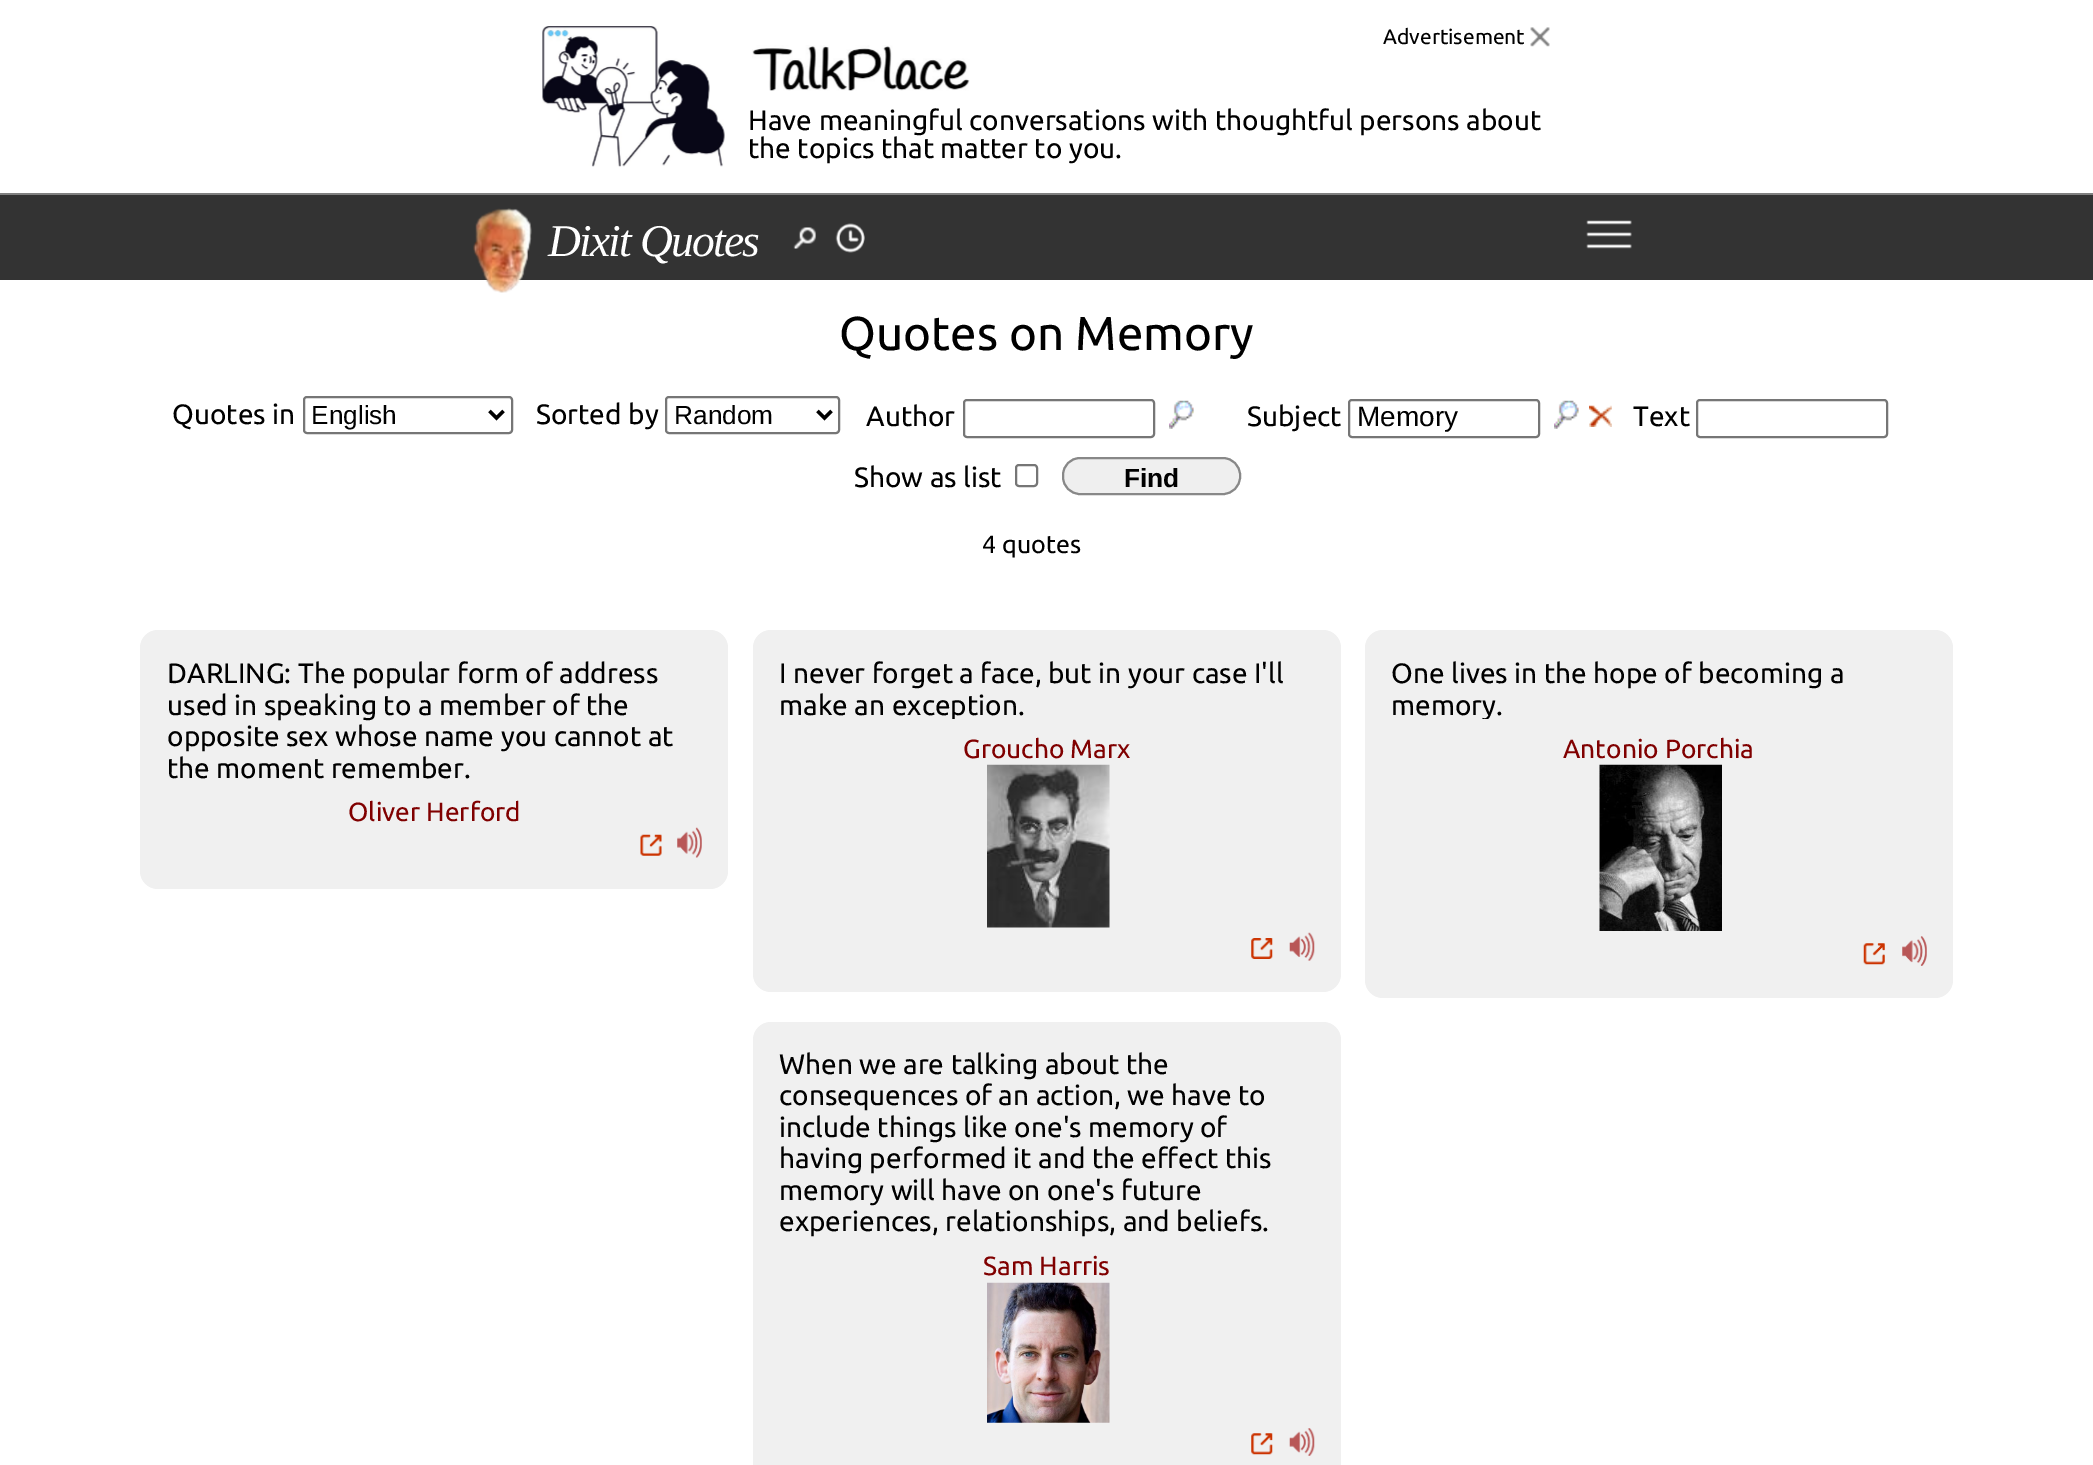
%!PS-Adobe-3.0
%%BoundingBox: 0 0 2093 1465
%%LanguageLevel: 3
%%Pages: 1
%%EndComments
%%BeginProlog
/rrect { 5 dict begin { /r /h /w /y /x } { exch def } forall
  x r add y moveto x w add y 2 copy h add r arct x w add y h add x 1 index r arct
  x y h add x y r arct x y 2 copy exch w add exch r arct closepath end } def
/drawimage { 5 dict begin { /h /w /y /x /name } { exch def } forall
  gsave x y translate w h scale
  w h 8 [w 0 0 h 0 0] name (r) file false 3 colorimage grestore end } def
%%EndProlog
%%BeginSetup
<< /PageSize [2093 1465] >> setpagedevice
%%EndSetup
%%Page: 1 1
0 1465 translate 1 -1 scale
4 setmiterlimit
1 setgray
0 0 2093 1465 rectfill
0.2 setgray
0 195 2093 85 rectfill
0.502 setgray
0 193 2093 2 rectfill
(images/1.raw) 542 26 183 141 drawimage
(images/2.raw) 1530 27 20 20 drawimage
(images/3.raw) 752 45 218 46 drawimage
(images/4.raw) 473 208 59 85 drawimage
(images/5.raw) 793 227 23 22 drawimage
(images/6.raw) 835 223 30 30 drawimage
(images/7.raw) 1586 220 46 29 drawimage
0.463 setgray
2 setlinewidth
304 397 208 36 3 rrect stroke
0 setgray
3.5 setlinewidth
newpath 489.5 411 moveto 496.5 418 lineto 503.5 411 lineto stroke
0.463 setgray
2 setlinewidth
666 397 173 36 3 rrect stroke
0 setgray
3.5 setlinewidth
newpath 817.5 411 moveto 824.5 418 lineto 831.5 411 lineto stroke
0.463 setgray
2 setlinewidth
964 400 190 37 3 rrect stroke
(images/8.raw) 1169 400 25 29 drawimage
1349 400 190 37 3 rrect stroke
(images/8.raw) 1554 400 25 29 drawimage
(images/9.raw) 1589 405 23 22 drawimage
1697 400 190 37 3 rrect stroke
1016 465 21 21 3 rrect stroke
0.937 setgray
1063 458 177 36 17 rrect gsave fill grestore
0.533 setgray
stroke
0.941 setgray
140 630 588 259 18 rrect fill
(images/10.raw) 640 834 22 22 drawimage
(images/11.raw) 677 827 25 31 drawimage
753 630 588 362 18 rrect fill
(images/12.raw) 987 764 123 164 drawimage
(images/13.raw) 1251 938 22 21 drawimage
(images/14.raw) 1289 932 26 29 drawimage
1365 630 588 368 18 rrect fill
(images/15.raw) 1599 764 123 167 drawimage
(images/16.raw) 1863 943 22 22 drawimage
(images/17.raw) 1902 936 25 30 drawimage
753 1022 588 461 18 rrect fill
(images/18.raw) 987 1282 123 141 drawimage
(images/19.raw) 1251 1433 22 22 drawimage
(images/20.raw) 1289 1428 26 28 drawimage
/Ubuntu-Regular [21 0 0 -21 0 0] selectfont
0 setgray
1383 44 moveto (Advertisement) show
/Ubuntu-Regular [28 0 0 -28 0 0] selectfont
748 130 moveto (Have meaningful conversations with thoughtful persons about) show
748 158 moveto (the topics that matter to you.) show
/LiberationSerif-Italic [45.5 0 0 -45.5 0 0] selectfont
1 setgray
548 256 moveto -1.75 0 (Dixit Quotes) ashow
/Ubuntu-Regular [47.5 0 0 -47.5 0 0] selectfont
0 setgray
839 350 moveto (Quotes on Memory) show
/Ubuntu-Regular [28 0 0 -28 0 0] selectfont
172 424 moveto (Quotes in) show
/LiberationSans-Regular [26.25 0 0 -26.25 0 0] selectfont
311 424 moveto (English) show
/Ubuntu-Regular [28 0 0 -28 0 0] selectfont
536 424 moveto (Sorted by) show
/LiberationSans-Regular [26.25 0 0 -26.25 0 0] selectfont
674 424 moveto (Random) show
/Ubuntu-Regular [28 0 0 -28 0 0] selectfont
866 426 moveto (Author) show
1247 426 moveto (Subject) show
/LiberationSans-Regular [28 0 0 -28 0 0] selectfont
1357 426 moveto (Memory) show
/Ubuntu-Regular [28 0 0 -28 0 0] selectfont
1633 426 moveto (Text) show
854 487 moveto (Show as list) show
/LiberationSans-Bold [26.25 0 0 -26.25 0 0] selectfont
1124 487 moveto (Find) show
/Ubuntu-Regular [25 0 0 -25 0 0] selectfont
982 553 moveto (4 quotes) show
/Ubuntu-Regular [28 0 0 -28 0 0] selectfont
167 683 moveto (DARLING: The popular form of address) show
167 715 moveto (used in speaking to a member of the) show
167 746 moveto (opposite sex whose name you cannot at) show
167 778 moveto (the moment remember.) show
/Ubuntu-Regular [26.25 0 0 -26.25 0 0] selectfont
0.502 0 0 setrgbcolor
348 821 moveto (Oliver Herford) show
/Ubuntu-Regular [28 0 0 -28 0 0] selectfont
0 setgray
779 683 moveto (I never forget a face, but in your case I'll) show
gsave
779 656 535 63 rectclip
779 715 moveto (make an exception.) show
grestore
/Ubuntu-Regular [26.25 0 0 -26.25 0 0] selectfont
0.502 0 0 setrgbcolor
963 758 moveto (Groucho Marx) show
/Ubuntu-Regular [28 0 0 -28 0 0] selectfont
0 setgray
1391 683 moveto (One lives in the hope of becoming a) show
gsave
1391 656 536 63 rectclip
1391 715 moveto (memory.) show
grestore
/Ubuntu-Regular [26.25 0 0 -26.25 0 0] selectfont
0.502 0 0 setrgbcolor
1563 758 moveto (Antonio Porchia) show
/Ubuntu-Regular [28 0 0 -28 0 0] selectfont
0 setgray
779 1074 moveto (When we are talking about the) show
779 1105 moveto (consequences of an action, we have to) show
779 1137 moveto (include things like one's memory of) show
779 1168 moveto (having performed it and the effect this) show
779 1200 moveto (memory will have on one's future) show
779 1231 moveto (experiences, relationships, and beliefs.) show
/Ubuntu-Regular [26.25 0 0 -26.25 0 0] selectfont
0.502 0 0 setrgbcolor
983 1275 moveto (Sam Harris) show
showpage
%%EOF
